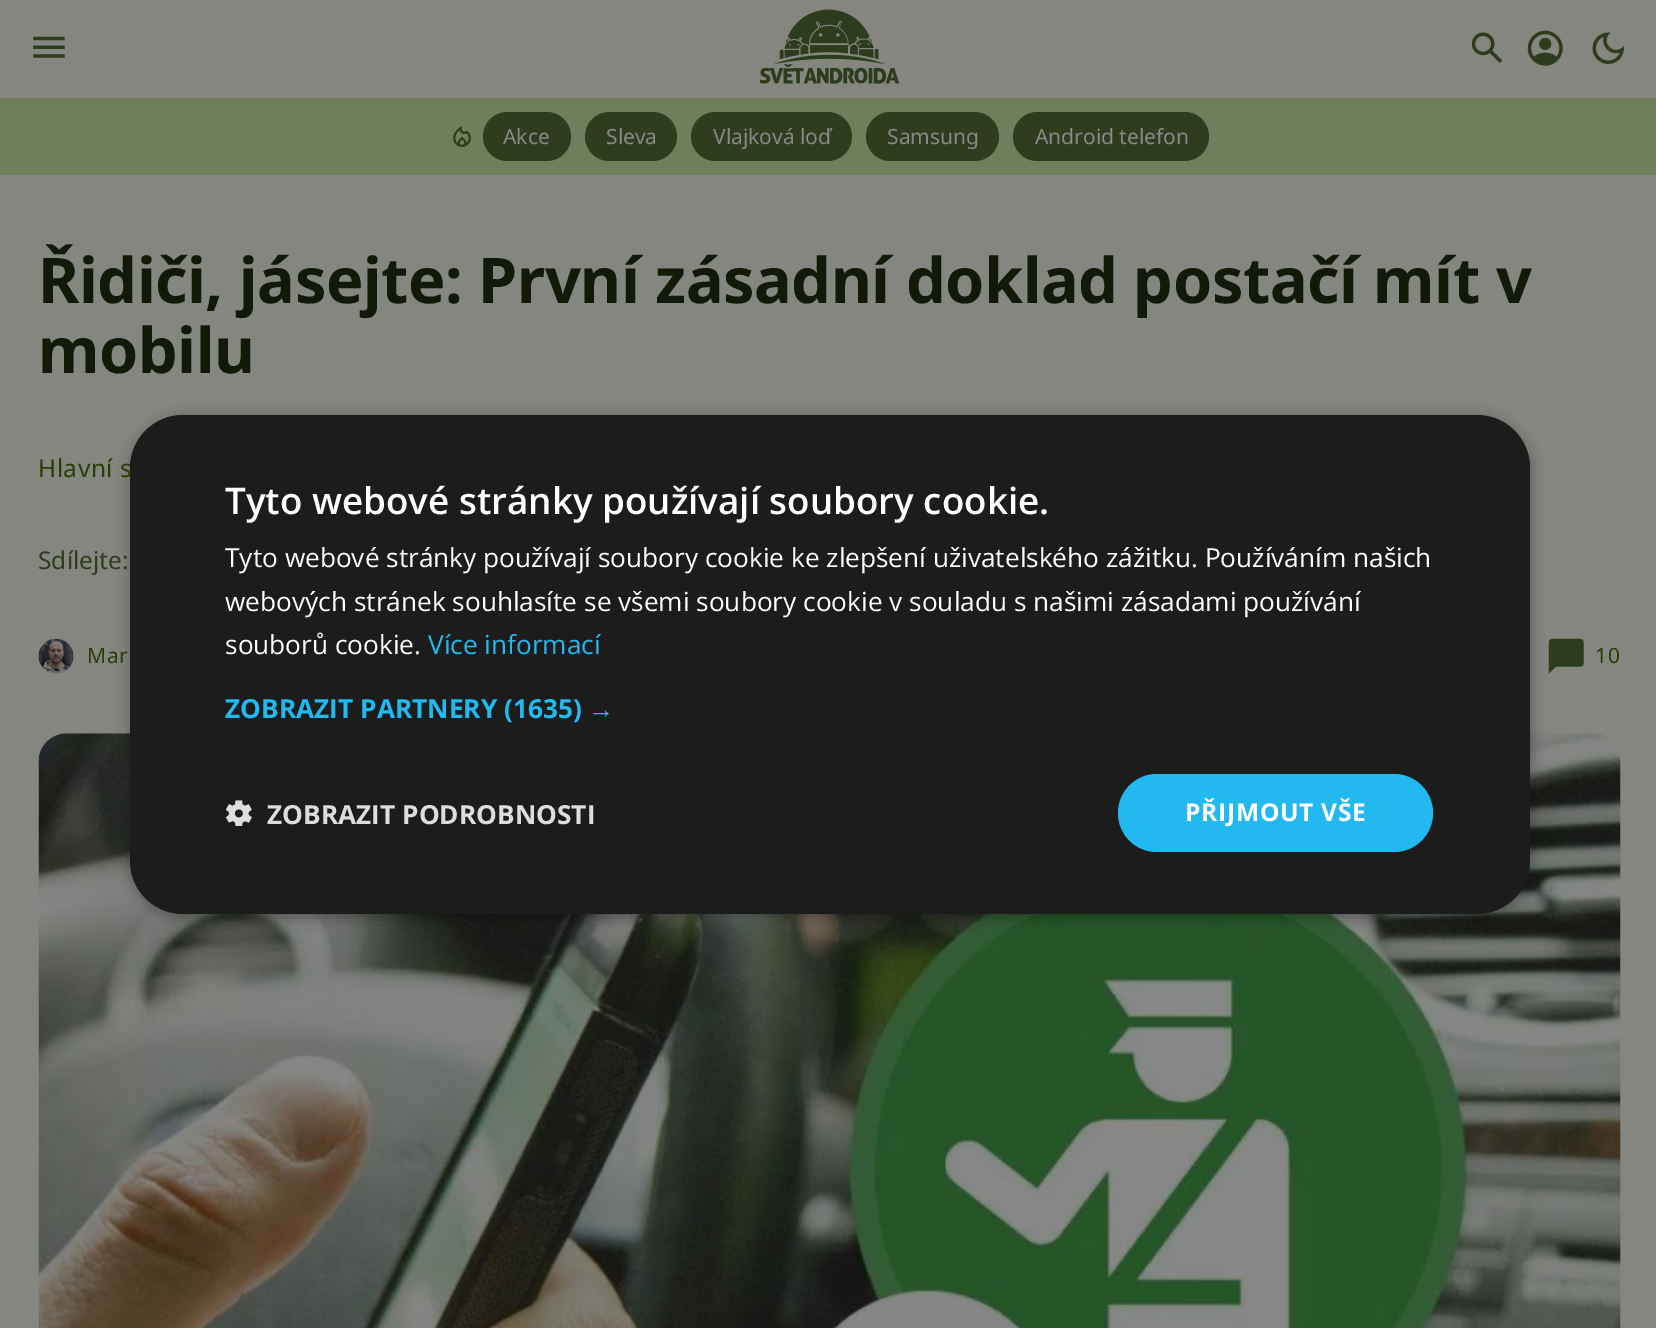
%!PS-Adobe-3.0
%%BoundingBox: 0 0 1656 1328
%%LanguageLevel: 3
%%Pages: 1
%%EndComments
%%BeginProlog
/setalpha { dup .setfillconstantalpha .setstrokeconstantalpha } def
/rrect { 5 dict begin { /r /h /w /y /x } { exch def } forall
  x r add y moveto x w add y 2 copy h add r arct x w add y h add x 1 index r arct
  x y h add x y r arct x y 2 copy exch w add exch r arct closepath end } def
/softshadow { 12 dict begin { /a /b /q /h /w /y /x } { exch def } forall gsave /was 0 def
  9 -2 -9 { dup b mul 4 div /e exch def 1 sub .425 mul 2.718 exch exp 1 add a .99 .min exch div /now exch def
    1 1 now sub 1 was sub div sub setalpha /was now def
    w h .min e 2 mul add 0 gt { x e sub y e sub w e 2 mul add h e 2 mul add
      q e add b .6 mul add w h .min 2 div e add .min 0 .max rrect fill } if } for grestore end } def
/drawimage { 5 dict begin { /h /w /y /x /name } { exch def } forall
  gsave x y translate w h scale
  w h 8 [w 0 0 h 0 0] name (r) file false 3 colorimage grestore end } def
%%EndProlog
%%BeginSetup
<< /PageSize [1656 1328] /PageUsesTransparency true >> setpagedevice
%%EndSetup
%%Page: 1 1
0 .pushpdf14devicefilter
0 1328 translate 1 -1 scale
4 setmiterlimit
0.435 0.498 0.357 setrgbcolor
0 0 1656 1328 rectfill
0.522 0.525 0.502 setrgbcolor
0 0 1656 98 rectfill
(images/1.raw) 33 36 32 22 drawimage
(images/2.raw) 759 9 140 75 drawimage
(images/3.raw) 1472 32 31 31 drawimage
(images/4.raw) 1527 30 36 36 drawimage
(images/5.raw) 1592 32 32 32 drawimage
(images/6.raw) 453 126 18 21 drawimage
0.184 0.235 0.118 setrgbcolor
483 112 88 49 24.5 rrect fill
585 112 92 49 24.5 rrect fill
691 112 161 49 24.5 rrect fill
866 112 133 49 24.5 rrect fill
1013 112 196 49 24.5 rrect fill
0.522 0.525 0.502 setrgbcolor
0 175 1656 1153 rectfill
(images/7.raw) 38 638 36 36 drawimage
(images/8.raw) 1548 638 36 36 drawimage
(images/9.raw) 38 733 1583 595 drawimage
0 setgray
131 418 1400 499 53 7 0.35 softshadow
0.11 setgray
130 415 1400 499 53 rrect fill
(images/10.raw) 226 800 26 26 drawimage
0.133 0.722 0.941 setrgbcolor
1118 774 315 78 39 rrect fill
/NotoSans-Regular [21 0 0 -21 0 0] selectfont
0.533 setgray
503 144 moveto (Akce) show
606 144 moveto (Sleva) show
713 144 moveto (Vlajková loď) show
887 144 moveto (Samsung) show
1035 144 moveto (Android telefon) show
/NotoSans-Bold [63 0 0 -63 0 0] selectfont
0.067 0.098 0.035 setrgbcolor
38 303 moveto -0.45 0 (Řidiči, jásejte: První zásadní doklad postačí mít v) ashow
38 373 moveto -0.45 0 (mobilu) ashow
/NotoSans-Regular [24.5 0 0 -24.5 0 0] selectfont
0.161 0.239 0.035 setrgbcolor
38 477 moveto 0.5 0 (Hlavní s) ashow
0.184 0.235 0.118 setrgbcolor
38 569 moveto (Sdílejte:) show
/NotoSans-Regular [21 0 0 -21 0 0] selectfont
0.161 0.239 0.035 setrgbcolor
87 663 moveto 0.5 0 (Mar) ashow
1595 663 moveto 0.5 0 (10) ashow
/OpenSans-SemiBold [36.75 0 0 -36.75 0 0] selectfont
1 setgray
225 514 moveto (Tyto webové stránky používají soubory cookie.) show
/OpenSans-Regular [26.25 0 0 -26.25 0 0] selectfont
225 567 moveto (Tyto webové stránky používají soubory cookie ke zlepšení uživatelského zážitku. Používáním našich) show
225 611 moveto (webových stránek souhlasíte se všemi soubory cookie v souladu s našimi zásadami používání) show
225 654 moveto (souborů cookie.) show
0.133 0.722 0.941 setrgbcolor
428 654 moveto (Více informací) show
/OpenSans-Bold [26.25 0 0 -26.25 0 0] selectfont
225 718 moveto (ZOBRAZIT PARTNERY \(1635\)) show
/LiberationSans-Bold [26.25 0 0 -26.25 0 0] selectfont
588 718 moveto (→) show
/OpenSans-Bold [26.25 0 0 -26.25 0 0] selectfont
0.867 setgray
267 824 moveto (ZOBRAZIT PODROBNOSTI) show
/OpenSans-Bold [24.5 0 0 -24.5 0 0] selectfont
1 setgray
1185 821 moveto 0.75 0 (PŘIJMOUT VŠE) ashow
.poppdf14devicefilter showpage
%%EOF
